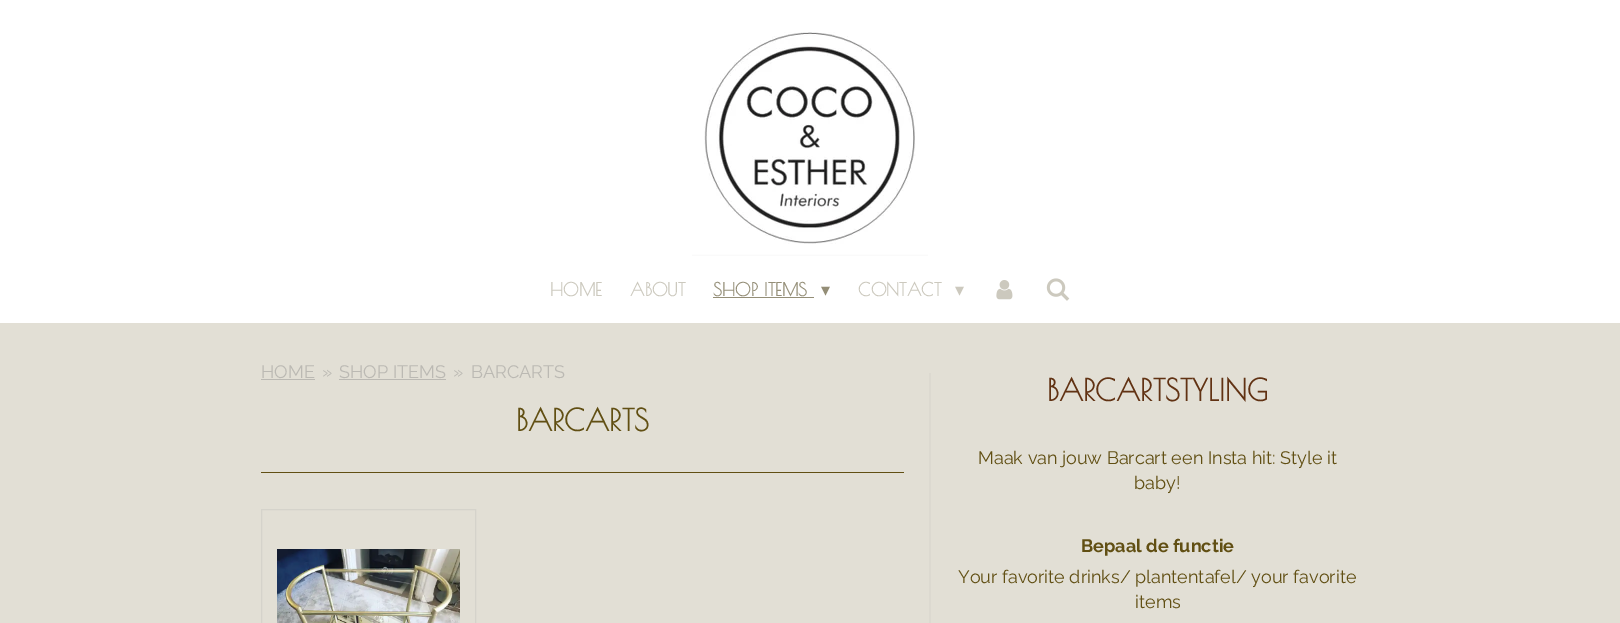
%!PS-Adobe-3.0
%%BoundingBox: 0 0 1620 623
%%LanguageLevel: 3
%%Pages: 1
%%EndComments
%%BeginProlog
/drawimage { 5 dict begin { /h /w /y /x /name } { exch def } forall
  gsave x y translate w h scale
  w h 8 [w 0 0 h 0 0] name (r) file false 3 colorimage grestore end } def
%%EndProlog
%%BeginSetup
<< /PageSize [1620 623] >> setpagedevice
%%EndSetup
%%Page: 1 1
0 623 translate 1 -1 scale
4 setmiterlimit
0.886 0.875 0.835 setrgbcolor
0 0 1620 623 rectfill
1 setgray
0 0 1620 323 rectfill
(images/1.raw) 692 32 236 224 drawimage
0.58 0.557 0.467 setrgbcolor
713 297 101 1 rectfill
(images/2.raw) 996 280 17 20 drawimage
(images/3.raw) 1046 278 24 23 drawimage
0.733 0.725 0.702 setrgbcolor
261 379 54 1 rectfill
339 379 107 1 rectfill
0.38 0.31 0.075 setrgbcolor
261 472 643 1 rectfill
0.835 0.827 0.796 setrgbcolor
261.5 509.5 214 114 rectstroke
(images/4.raw) 277 549 183 74 drawimage
0.863 0.851 0.816 setrgbcolor
929 373 2 250 rectfill
/PoiretOne-Bold [18 0 0 -18 0 0] selectfont
0.8 0.788 0.745 setrgbcolor
550 296 moveto (HOME) show
630 296 moveto (ABOUT) show
0.58 0.557 0.467 setrgbcolor
713 296 moveto (SHOP ITEMS) show
/DejaVuSans-Regular [18 0 0 -18 0 0] selectfont
821 296 moveto (▾) show
/PoiretOne-Bold [18 0 0 -18 0 0] selectfont
0.8 0.788 0.745 setrgbcolor
858 296 moveto (CONTACT) show
/DejaVuSans-Regular [18 0 0 -18 0 0] selectfont
955 296 moveto (▾) show
/Raleway-Thin [18 0 0 -18 0 0] selectfont
0.733 0.725 0.702 setrgbcolor
261 378 moveto (HOME) show
322 378 moveto (») show
339 378 moveto (SHOP ITEMS) show
453 378 moveto (») show
471 378 moveto (BARCARTS) show
/PoiretOne-Bold [30 0 0 -30 0 0] selectfont
0.38 0.31 0.075 setrgbcolor
516 431 moveto (BARCARTS) show
0.38 0.196 0.075 setrgbcolor
1047 401 moveto (BARCARTSTYLING) show
/Raleway-Thin [18 0 0 -18 0 0] selectfont
0.38 0.31 0.075 setrgbcolor
978 464 moveto (Maak van jouw Barcart een Insta hit: Style it) show
1134 489 moveto (baby!) show
/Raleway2-Thin [18 0 0 -18 0 0] selectfont
1081 552 moveto (Bepaal de functie) show
/Raleway-Thin [18 0 0 -18 0 0] selectfont
958 583 moveto (Your favorite drinks/ plantentafel/ your favorite) show
1135 608 moveto (items) show
showpage
%%EOF
